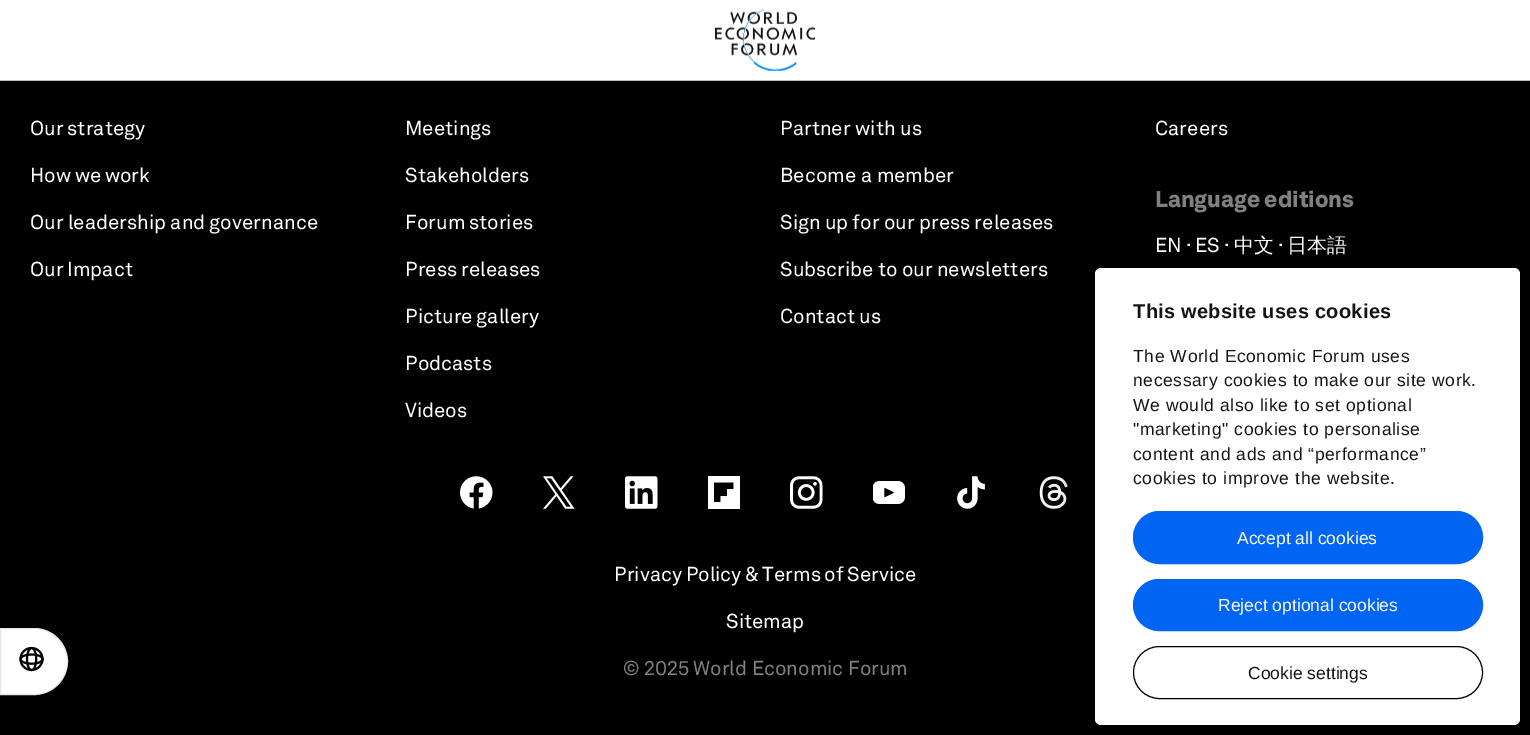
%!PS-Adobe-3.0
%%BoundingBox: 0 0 1530 735
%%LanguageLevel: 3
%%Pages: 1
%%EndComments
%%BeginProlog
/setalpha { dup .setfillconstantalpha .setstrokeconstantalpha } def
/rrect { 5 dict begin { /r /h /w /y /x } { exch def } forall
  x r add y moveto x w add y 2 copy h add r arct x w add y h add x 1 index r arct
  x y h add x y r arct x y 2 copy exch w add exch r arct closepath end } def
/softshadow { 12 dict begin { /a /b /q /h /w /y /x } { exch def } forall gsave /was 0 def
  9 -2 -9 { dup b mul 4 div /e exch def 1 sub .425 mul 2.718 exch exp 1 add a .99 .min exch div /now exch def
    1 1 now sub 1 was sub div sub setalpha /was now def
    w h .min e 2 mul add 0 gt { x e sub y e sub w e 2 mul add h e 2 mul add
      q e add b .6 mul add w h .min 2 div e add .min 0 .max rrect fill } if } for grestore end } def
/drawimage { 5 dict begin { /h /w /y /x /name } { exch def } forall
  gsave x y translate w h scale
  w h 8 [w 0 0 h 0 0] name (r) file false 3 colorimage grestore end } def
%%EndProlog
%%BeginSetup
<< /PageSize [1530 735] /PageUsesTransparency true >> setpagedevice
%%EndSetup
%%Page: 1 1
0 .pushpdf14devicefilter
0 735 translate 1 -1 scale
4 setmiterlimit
0 setgray
0 0 1530 735 rectfill
1 setgray
0 0 1530 80 rectfill
0.749 setgray
0 80 1530 1 rectfill
(images/1.raw) 715 8 100 63 drawimage
(images/2.raw) 460 476 33 33 drawimage
(images/3.raw) 543 476 32 33 drawimage
(images/4.raw) 625 476 33 33 drawimage
gsave
708 476 32 33 rectclip
1 setgray
newpath 740 476 moveto 707.5 476 lineto 707.5 509 lineto 740 509 lineto closepath 727 489 moveto 733.5 489 lineto 733.5 482.5 lineto 714 482.5 lineto 714 502 lineto 720.5 502 lineto 720.5 496 lineto 727 496 lineto closepath eofill
grestore
(images/5.raw) 790 476 33 33 drawimage
(images/6.raw) 873 481 32 23 drawimage
(images/7.raw) 957 476 28 33 drawimage
(images/8.raw) 1039 476 29 33 drawimage
1 setgray
newpath 0.5 628.5 moveto 34.5 628.5 lineto 52.5 628.5 67.5 643.5 67.5 661.5 curveto 67.5 679.5 52.5 694.5 34.5 694.5 curveto 0.5 694.5 lineto closepath gsave fill grestore
0.902 setgray
stroke
(images/9.raw) 19 646 25 26 drawimage
0 setgray
1095 308 425 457 6 42.5 0.3 softshadow
1 setgray
1095 268 425 457 6 rrect fill
0 0.396 0.949 setrgbcolor
1133.5 511.5 349 52 26 rrect gsave fill grestore
stroke
1133.5 579.5 349 51 25.5 rrect gsave fill grestore
stroke
0 setgray
1133.5 646.5 349 52 26 rrect stroke
/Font-Regular [20 0 0 -20 0 0] selectfont
1 setgray
30 135 moveto -1 0 32 (Our strategy) widthshow
30 182 moveto -1 0 32 (How we work) widthshow
30 229 moveto -0.5 0 32 (Our leadership and governance) widthshow
30 276 moveto -1 0 32 (Our Impact) widthshow
405 135 moveto (Meetings) show
405 182 moveto (Stakeholders) show
405 229 moveto -1 0 32 (Forum stories) widthshow
405 276 moveto -0.5 0 32 (Press releases) widthshow
405 323 moveto -1 0 32 (Picture gallery) widthshow
405 370 moveto (Podcasts) show
405 417 moveto (Videos) show
780 135 moveto (Partner with us) show
780 182 moveto (Become a member) show
780 229 moveto -0.5 0 32 (Sign up for our press releases) widthshow
780 276 moveto -0.5 0 32 (Subscribe to our newsletters) widthshow
780 323 moveto (Contact us) show
1155 135 moveto (Careers) show
/Font-Black [22.5 0 0 -22.5 0 0] selectfont
0.502 setgray
1155 207 moveto (Language editions) show
/Font-Regular [20 0 0 -20 0 0] selectfont
1 setgray
1155 252 moveto (EN) show
/LiberationSans-Regular [10 0 0 -10 0 0] selectfont
1187 248 moveto (▪) show
/Font-Regular [20 0 0 -20 0 0] selectfont
1195 252 moveto (ES) show
/LiberationSans-Regular [10 0 0 -10 0 0] selectfont
1225 248 moveto (▪) show
/WenQuanYiZenHei-Medium [20 0 0 -20 0 0] selectfont
1234 252 moveto (中文) show
/LiberationSans-Regular [10 0 0 -10 0 0] selectfont
1279 248 moveto (▪) show
/WenQuanYiZenHei-Medium [20 0 0 -20 0 0] selectfont
1287 252 moveto (日本語) show
/Font-Regular [20 0 0 -20 0 0] selectfont
614 581 moveto -1 0 32 (Privacy Policy & Terms of Service) widthshow
726 628 moveto (Sitemap) show
0.502 setgray
623 675 moveto (© 2025) show
693 675 moveto (World Economic Forum) show
gsave
1133 301 350 210 rectclip
/LiberationSans-Bold [20 0 0 -20 0 0] selectfont
0.078 setgray
1133 318 moveto 0.3 0 (This website uses cookies) ashow
grestore
/LiberationSans-Regular [17.5 0 0 -17.5 0 0] selectfont
0.078 setgray
1133 362 moveto 0.6 0 (The World Economic Forum uses) ashow
1133 386 moveto 0.6 0 (necessary cookies to make our site work.) ashow
1133 411 moveto 0.6 0 (We would also like to set optional) ashow
1133 435 moveto 0.6 0 ("marketing" cookies to personalise) ashow
1133 460 moveto 0.6 0 (content and ads and “performance”) ashow
1133 484 moveto 0.6 0 (cookies to improve the website.) ashow
1 setgray
1237 544 moveto (Accept all cookies) show
1218 611 moveto (Reject optional cookies) show
0.078 setgray
1248 679 moveto (Cookie settings) show
.poppdf14devicefilter showpage
%%EOF
